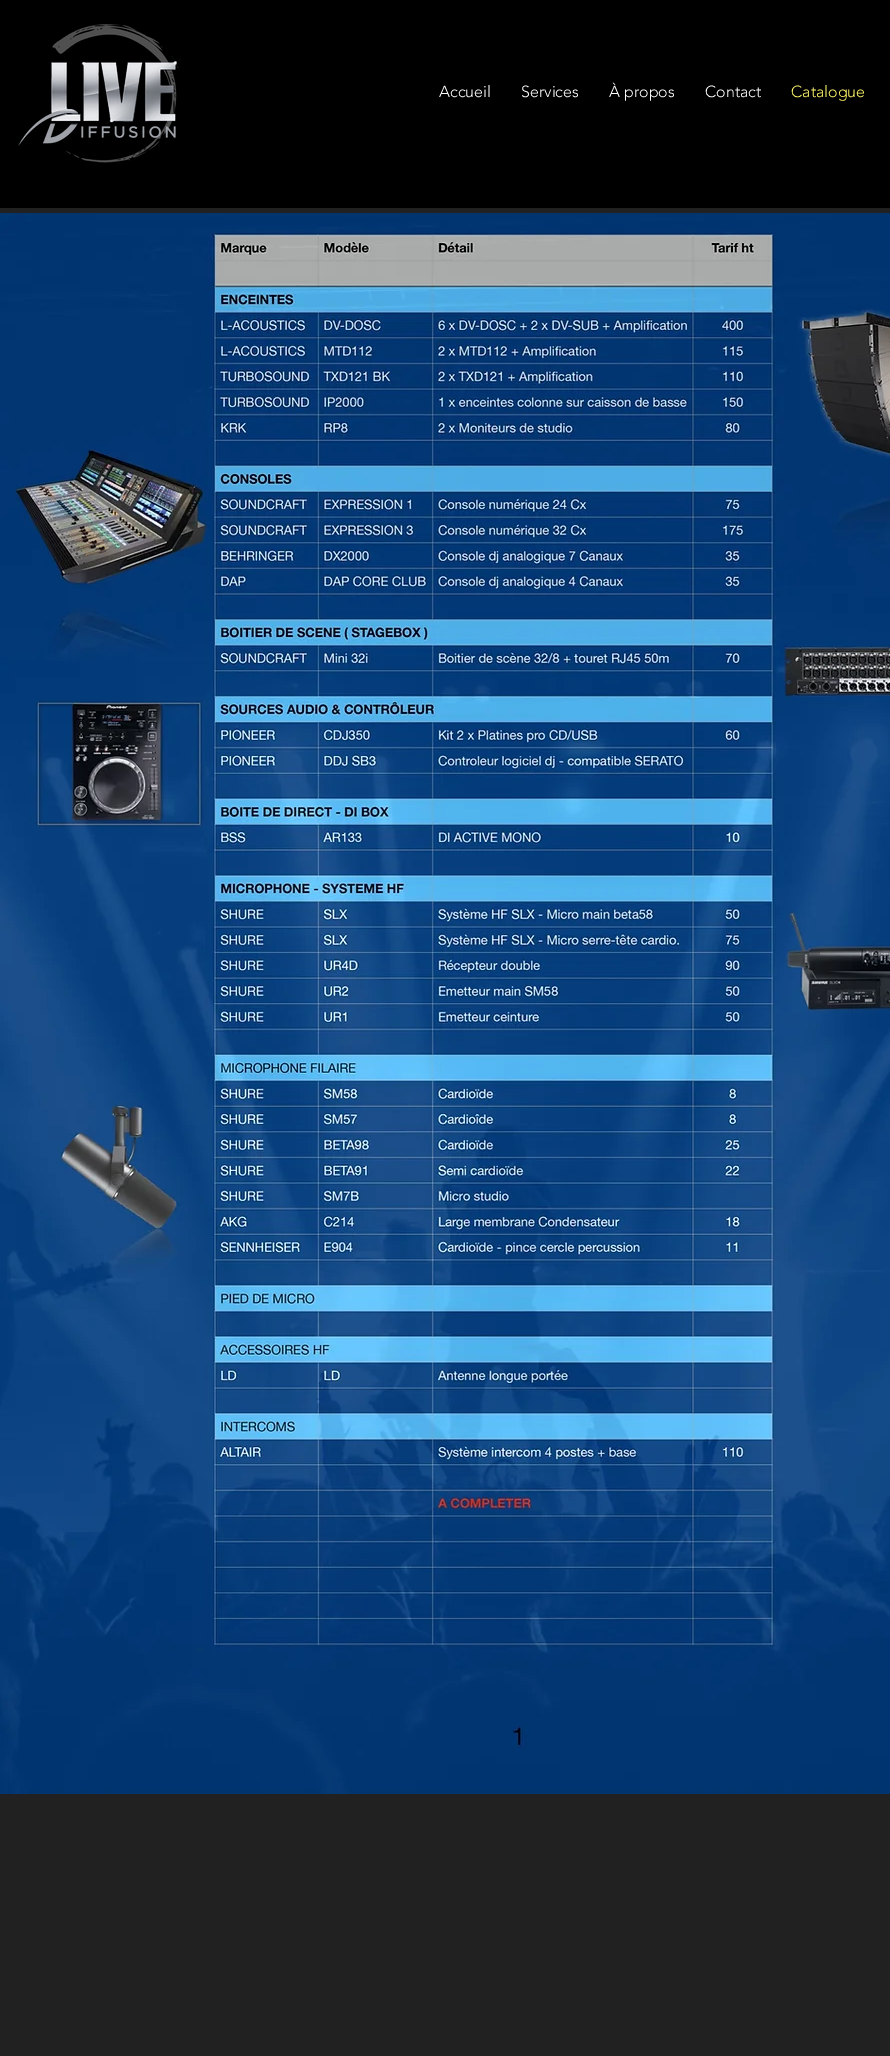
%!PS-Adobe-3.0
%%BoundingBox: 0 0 890 2056
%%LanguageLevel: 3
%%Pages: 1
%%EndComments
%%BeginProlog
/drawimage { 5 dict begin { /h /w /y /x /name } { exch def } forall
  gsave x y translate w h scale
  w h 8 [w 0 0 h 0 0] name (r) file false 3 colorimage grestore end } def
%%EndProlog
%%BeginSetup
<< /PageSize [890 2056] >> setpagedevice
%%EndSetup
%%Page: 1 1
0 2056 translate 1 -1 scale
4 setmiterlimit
0.129 setgray
0 0 890 2056 rectfill
0 setgray
0 0 890 208 rectfill
(images/1.raw) 18 24 164 139 drawimage
(images/2.raw) 0 213 890 1581 drawimage
/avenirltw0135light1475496-Light [16 0 0 -16 0 0] selectfont
1 setgray
439 97 moveto (Accueil) show
521 97 moveto (Services) show
609 97 moveto (À propos) show
705 97 moveto (Contact) show
1 0.969 0.416 setrgbcolor
791 97 moveto (Catalogue) show
showpage
%%EOF
